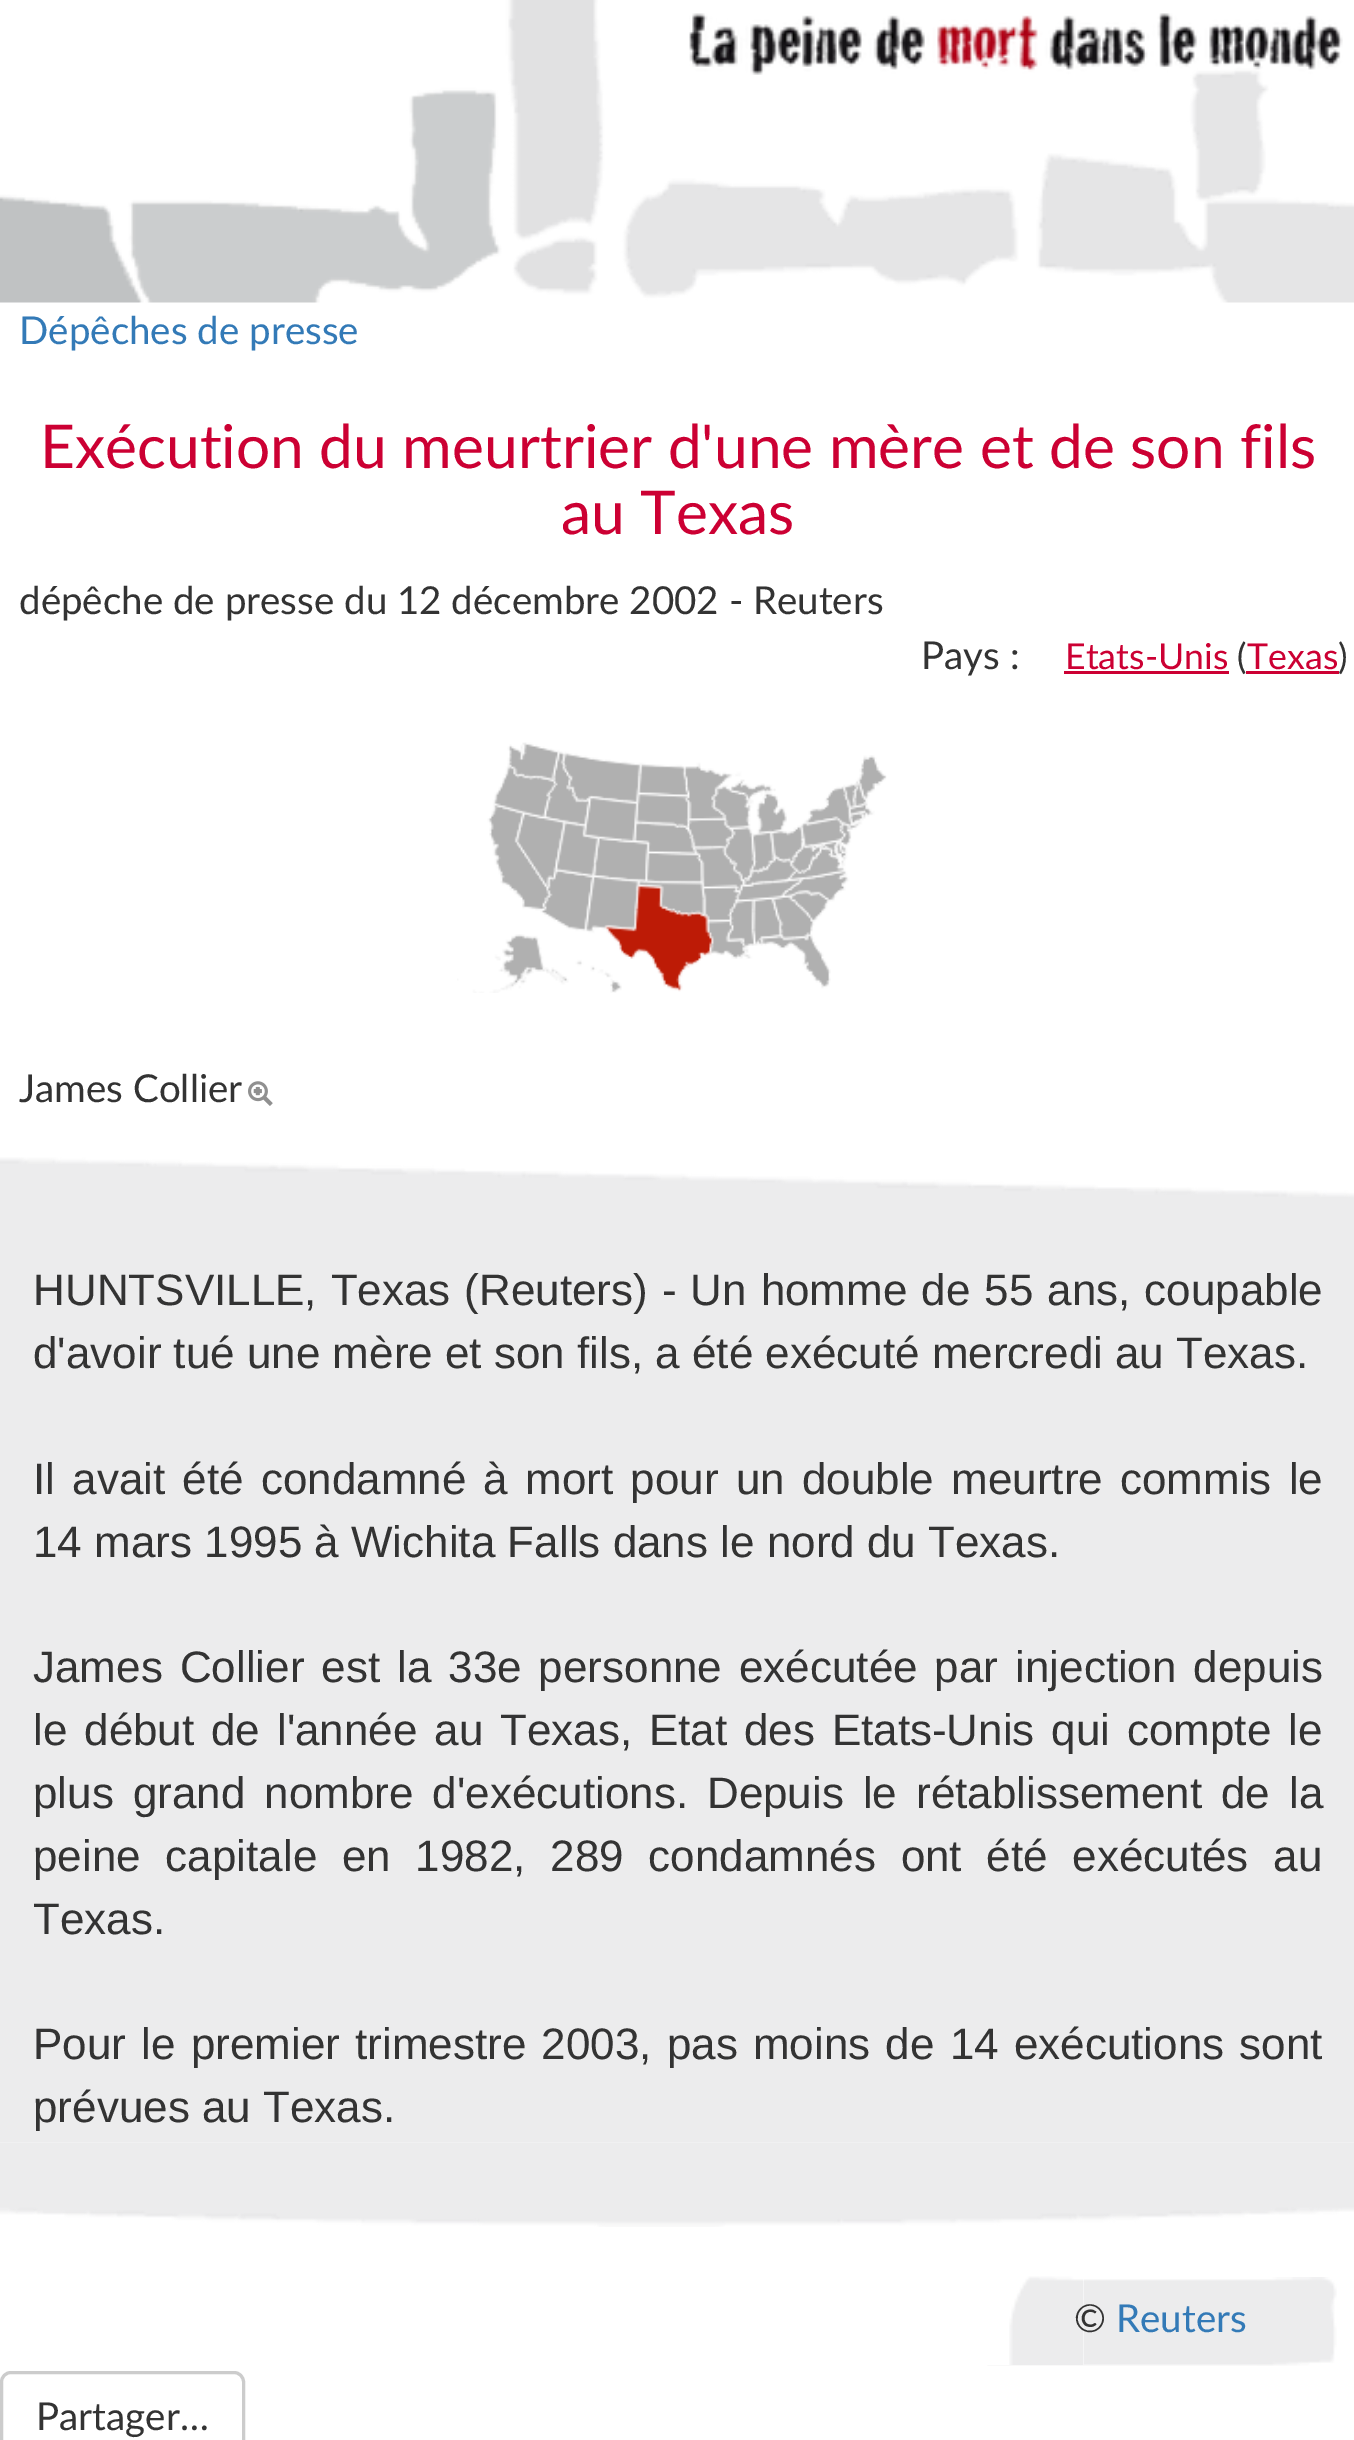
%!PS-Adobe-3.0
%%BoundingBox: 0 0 1354 2440
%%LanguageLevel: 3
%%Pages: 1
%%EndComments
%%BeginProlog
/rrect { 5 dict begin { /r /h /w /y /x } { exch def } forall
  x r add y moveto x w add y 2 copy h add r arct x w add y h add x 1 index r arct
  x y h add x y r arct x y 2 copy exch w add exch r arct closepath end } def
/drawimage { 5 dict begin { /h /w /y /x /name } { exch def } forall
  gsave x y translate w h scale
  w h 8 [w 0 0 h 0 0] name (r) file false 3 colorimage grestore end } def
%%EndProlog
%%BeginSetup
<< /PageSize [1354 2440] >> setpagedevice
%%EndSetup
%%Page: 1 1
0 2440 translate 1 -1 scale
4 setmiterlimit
1 setgray
0 0 1354 2440 rectfill
(images/1.raw) 0 0 1354 303 drawimage
(images/2.raw) 689 13 654 62 drawimage
0.8 0 0.2 setrgbcolor
1064 671 165 3 rectfill
1246 671 93 3 rectfill
(images/3.raw) 457 742 430 251 drawimage
(images/4.raw) 248 1081 25 25 drawimage
0.925 0.925 0.929 setrgbcolor
0 1262 1354 880 rectfill
(images/5.raw) 0 1157 1354 105 drawimage
(images/6.raw) 0 2142 1354 85 drawimage
(images/7.raw) 987 2279 270 87 drawimage
1 setgray
987 2279 97 86 rectfill
(images/8.raw) 1009 2276 75 89 drawimage
(images/9.raw) 1257 2277 80 89 drawimage
0.8 setgray
3 setlinewidth
1.5 2372.5 242 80 9.5 rrect stroke
/Lato-Regular [38.5 0 0 -38.5 0 0] selectfont
0.2 0.478 0.718 setrgbcolor
19 344 moveto (Dépêches de presse) show
/Lato-Regular [60.5 0 0 -60.5 0 0] selectfont
0.8 0 0.2 setrgbcolor
40 468 moveto (Exécution du meurtrier d'une mère et de son fils) show
561 534 moveto (au Texas) show
/Lato-Regular [38.5 0 0 -38.5 0 0] selectfont
0.2 setgray
19 614 moveto (dépêche de presse du 12 décembre 2002 - Reuters) show
921 669 moveto (Pays :) show
/Lato-Regular [35.75 0 0 -35.75 0 0] selectfont
0.8 0 0.2 setrgbcolor
1065 669 moveto (Etats-Unis) show
0.2 setgray
1237 669 moveto (\() show
0.8 0 0.2 setrgbcolor
1247 669 moveto (Texas) show
0.2 setgray
1338 669 moveto (\)) show
/Lato-Regular [38.5 0 0 -38.5 0 0] selectfont
19 1102 moveto (James Collier) show
/LiberationSans-Regular [44 0 0 -44 0 0] selectfont
33 1305 moveto 1.75 0 32 (HUNTSVILLE, Texas \(Reuters\) - Un homme de 55 ans, coupable) widthshow
33 1368 moveto (d'avoir tué une mère et son fils, a été exécuté mercredi au Texas.) show
33 1494 moveto 5 0 32 (Il avait été condamné à mort pour un double meurtre commis le) widthshow
33 1557 moveto (14 mars 1995 à Wichita Falls dans le nord du Texas.) show
33 1682 moveto 4.75 0 32 (James Collier est la 33e personne exécutée par injection depuis) widthshow
33 1745 moveto 4.6 0 32 (le début de l'année au Texas, Etat des Etats-Unis qui compte le) widthshow
33 1808 moveto 6.75 0 32 (plus grand nombre d'exécutions. Depuis le rétablissement de la) widthshow
33 1871 moveto 12.5 0 32 (peine capitale en 1982, 289 condamnés ont été exécutés au) widthshow
33 1934 moveto (Texas.) show
33 2059 moveto 3 0 32 (Pour le premier trimestre 2003, pas moins de 14 exécutions sont) widthshow
33 2122 moveto (prévues au Texas.) show
/Lato-Regular [38.5 0 0 -38.5 0 0] selectfont
1074 2332 moveto (©) show
0.2 0.478 0.718 setrgbcolor
1116 2332 moveto (Reuters) show
0.2 setgray
36 2430 moveto (Partager…) show
showpage
%%EOF
